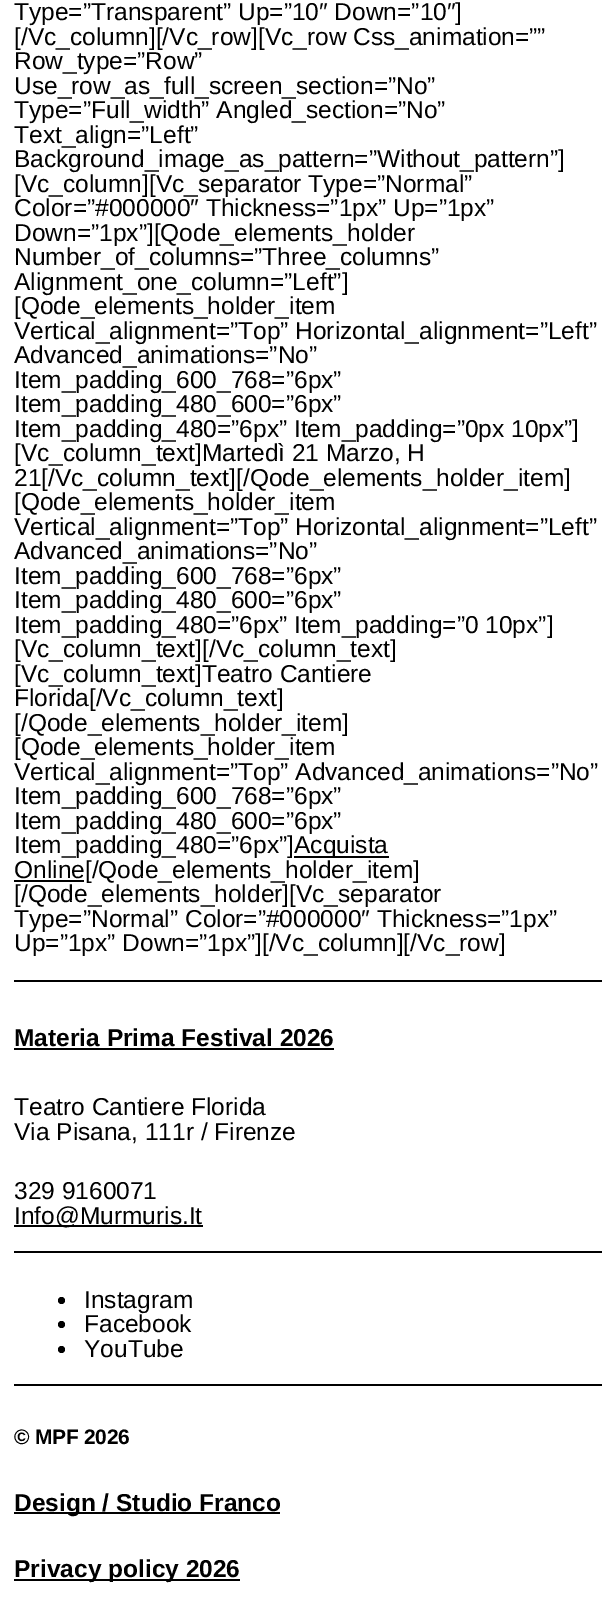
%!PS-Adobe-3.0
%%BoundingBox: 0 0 615 1611
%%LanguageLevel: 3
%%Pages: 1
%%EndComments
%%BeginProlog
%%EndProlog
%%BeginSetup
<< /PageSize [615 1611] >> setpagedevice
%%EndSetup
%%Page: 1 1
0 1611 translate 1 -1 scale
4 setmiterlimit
1 setgray
0 0 615 1611 rectfill
0 setgray
294 856 95 2 rectfill
14 880 70 2 rectfill
14 980 588 2 rectfill
14 1048 320 2 rectfill
14 1225 189 2 rectfill
14 1251 588 2 rectfill
newpath 61.5 1300.5 3.5 0 360 arc closepath fill
newpath 61.5 1324.5 3.5 0 360 arc closepath fill
newpath 61.5 1349.5 3.5 0 360 arc closepath fill
14 1384 588 2 rectfill
14 1512 266 2 rectfill
14 1579 226 2 rectfill
/LiberationSans-Regular [24.5 0 0 -24.5 0 0] selectfont
14 20 moveto (Type=”Transparent” Up=”10″ Down=”10″]) show
14 45 moveto ([/Vc_column][/Vc_row][Vc_row Css_animation=””) show
14 69 moveto (Row_type=”Row”) show
14 94 moveto (Use_row_as_full_screen_section=”No”) show
14 118 moveto (Type=”Full_width” Angled_section=”No”) show
14 143 moveto (Text_align=”Left”) show
14 167 moveto (Background_image_as_pattern=”Without_pattern”]) show
14 192 moveto ([Vc_column][Vc_separator Type=”Normal”) show
14 216 moveto (Color=”#000000″ Thickness=”1px” Up=”1px”) show
14 241 moveto (Down=”1px”][Qode_elements_holder) show
14 265 moveto (Number_of_columns=”Three_columns”) show
14 290 moveto (Alignment_one_column=”Left”]) show
14 314 moveto ([Qode_elements_holder_item) show
14 339 moveto (Vertical_alignment=”Top” Horizontal_alignment=”Left”) show
14 363 moveto (Advanced_animations=”No”) show
14 388 moveto (Item_padding_600_768=”6px”) show
14 412 moveto (Item_padding_480_600=”6px”) show
14 437 moveto (Item_padding_480=”6px” Item_padding=”0px 10px”]) show
14 461 moveto ([Vc_column_text]Martedì 21 Marzo, H) show
14 486 moveto (21[/Vc_column_text][/Qode_elements_holder_item]) show
14 510 moveto ([Qode_elements_holder_item) show
14 535 moveto (Vertical_alignment=”Top” Horizontal_alignment=”Left”) show
14 559 moveto (Advanced_animations=”No”) show
14 584 moveto (Item_padding_600_768=”6px”) show
14 608 moveto (Item_padding_480_600=”6px”) show
14 633 moveto (Item_padding_480=”6px” Item_padding=”0 10px”]) show
14 657 moveto ([Vc_column_text][/Vc_column_text]) show
14 682 moveto ([Vc_column_text]Teatro Cantiere) show
14 706 moveto (Florida[/Vc_column_text]) show
14 731 moveto ([/Qode_elements_holder_item]) show
14 755 moveto ([Qode_elements_holder_item) show
14 780 moveto (Vertical_alignment=”Top” Advanced_animations=”No”) show
14 804 moveto (Item_padding_600_768=”6px”) show
14 829 moveto (Item_padding_480_600=”6px”) show
14 853 moveto (Item_padding_480=”6px”]) show
294 853 moveto (Acquista) show
14 878 moveto (Online[/Qode_elements_holder_item]) show
14 902 moveto ([/Qode_elements_holder][Vc_separator) show
14 927 moveto (Type=”Normal” Color=”#000000″ Thickness=”1px”) show
14 951 moveto (Up=”1px” Down=”1px”][/Vc_column][/Vc_row]) show
/LiberationSans-Bold [24.5 0 0 -24.5 0 0] selectfont
14 1046 moveto (Materia Prima Festival 2026) show
/LiberationSans-Regular [24.5 0 0 -24.5 0 0] selectfont
14 1115 moveto (Teatro Cantiere Florida) show
14 1140 moveto (Via Pisana, 111r / Firenze) show
14 1199 moveto (329 9160071) show
14 1224 moveto (Info@Murmuris.It) show
84 1308 moveto (Instagram) show
84 1332 moveto (Facebook) show
84 1357 moveto (YouTube) show
/LiberationSans-Bold [21 0 0 -21 0 0] selectfont
14 1444 moveto -0.25 0 (© MPF 2026) ashow
/LiberationSans-Bold [24.5 0 0 -24.5 0 0] selectfont
14 1511 moveto (Design / Studio Franco) show
14 1577 moveto (Privacy policy 2026) show
showpage
%%EOF
